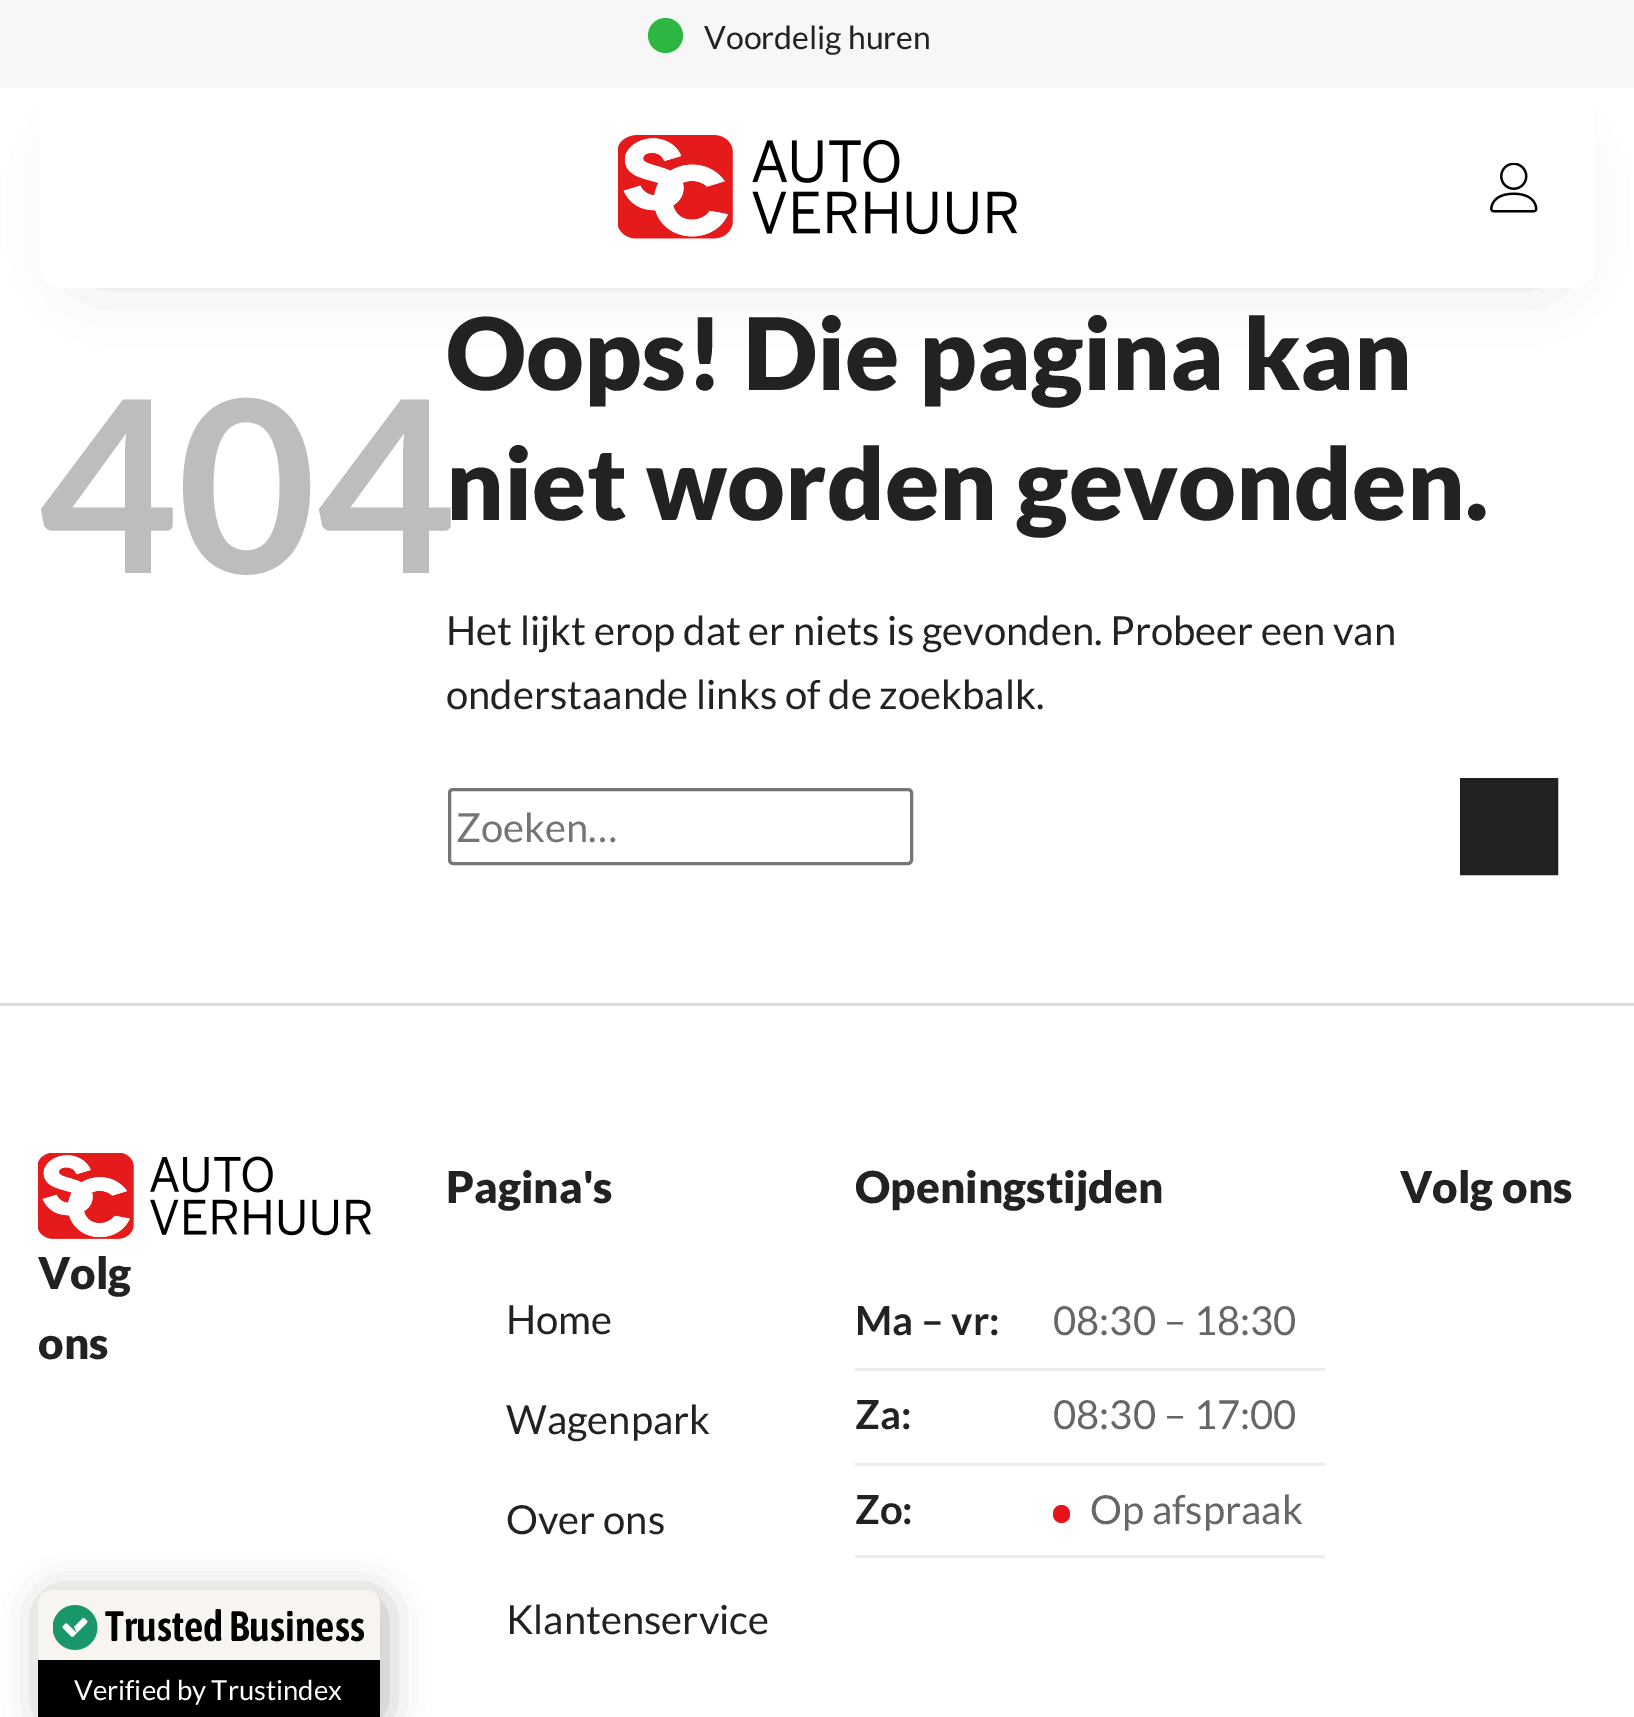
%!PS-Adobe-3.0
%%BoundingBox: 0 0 1634 1717
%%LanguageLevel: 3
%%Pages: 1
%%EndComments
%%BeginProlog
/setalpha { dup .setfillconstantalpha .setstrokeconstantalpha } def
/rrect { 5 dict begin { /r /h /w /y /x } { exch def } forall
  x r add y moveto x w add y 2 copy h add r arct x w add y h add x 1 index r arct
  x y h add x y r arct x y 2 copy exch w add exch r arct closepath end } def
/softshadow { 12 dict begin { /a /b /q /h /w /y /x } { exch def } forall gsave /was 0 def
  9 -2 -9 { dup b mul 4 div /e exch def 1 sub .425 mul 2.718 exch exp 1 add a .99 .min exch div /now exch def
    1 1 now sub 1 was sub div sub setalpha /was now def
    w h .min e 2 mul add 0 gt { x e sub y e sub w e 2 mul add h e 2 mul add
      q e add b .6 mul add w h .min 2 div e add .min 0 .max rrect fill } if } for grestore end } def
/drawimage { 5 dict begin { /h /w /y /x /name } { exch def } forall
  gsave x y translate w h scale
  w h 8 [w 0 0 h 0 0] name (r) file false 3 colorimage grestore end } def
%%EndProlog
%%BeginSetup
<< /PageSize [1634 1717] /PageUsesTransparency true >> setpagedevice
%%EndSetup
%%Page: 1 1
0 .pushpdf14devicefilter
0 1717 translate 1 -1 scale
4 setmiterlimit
1 setgray
0 0 1634 1717 rectfill
gsave
newpath 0 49 moveto 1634 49 lineto 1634 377 lineto 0 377 lineto closepath 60 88 moveto 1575 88 lineto 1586 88 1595 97 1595 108 curveto 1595 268 lineto 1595 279 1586 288 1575 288 curveto 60 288 lineto 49 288 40 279 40 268 curveto 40 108 lineto 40 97 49 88 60 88 curveto closepath eoclip newpath
0 setgray
90 163 1455 100 0 37.5 0.2 softshadow
grestore
0.969 setgray
0 0 1634 88 rectfill
0.176 0.718 0.259 setrgbcolor
newpath 665.5 35.5 17.5 0 360 arc closepath fill
0.54 setalpha
1 setgray
40 88 1555 200 20 rrect fill
1 setalpha
(images/1.raw) 618 135 399 104 drawimage
(images/2.raw) 1490 163 48 50 drawimage
0.463 setgray
3 setlinewidth
449.5 789.5 462 74 3.5 rrect stroke
0.133 setgray
newpath 1461.5 779.5 moveto 1556.5 779.5 lineto 1556.5 873.5 lineto 1461.5 873.5 lineto closepath gsave fill grestore
0.125 setgray
stroke
0.867 setgray
0 1003 1634 3 rectfill
0.925 setgray
855 1368 470 3 rectfill
855 1463 470 3 rectfill
855 1555 470 3 rectfill
0.898 0.075 0.102 setrgbcolor
1053 1505 17 18 8.5 rrect fill
(images/3.raw) 38 1153 333 86 drawimage
0 setgray
43 1595 342 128 15 19 0.3 softshadow
0.973 0.961 0.941 setrgbcolor
newpath 53 1590 moveto 365 1590 lineto 373.5 1590 380 1596.5 380 1605 curveto 380 1660 lineto 38 1660 lineto 38 1605 lineto 38 1596.5 44.5 1590 53 1590 curveto closepath fill
(images/4.raw) 53 1605 45 45 drawimage
0 setgray
38 1660 342 57 rectfill
/Lato-Regular [32 0 0 -32 0 0] selectfont
0.133 setgray
704 49 moveto (Voordelig huren) show
/Lato-Bold [240 0 0 -240 0 0] selectfont
0.741 setgray
38 573 moveto (404) show
/Lato-Black [100 0 0 -100 0 0] selectfont
0.133 setgray
446 390 moveto (Oops! Die pagina kan) show
446 520 moveto (niet worden gevonden.) show
/Lato-Regular [40 0 0 -40 0 0] selectfont
446 645 moveto (Het lijkt erop dat er niets is gevonden. Probeer een van) show
446 709 moveto (onderstaande links of de zoekbalk.) show
0.459 setgray
456 842 moveto (Zoeken…) show
/Lato-Black [44 0 0 -44 0 0] selectfont
0.133 setgray
446 1203 moveto (Pagina's) show
/Lato-Regular [40 0 0 -40 0 0] selectfont
506 1334 moveto (Home) show
506 1434 moveto (Wagenpark) show
506 1534 moveto (Over ons) show
506 1634 moveto (Klantenservice) show
/Lato-Black [44 0 0 -44 0 0] selectfont
855 1203 moveto (Openingstijden) show
/Lato-Bold [40 0 0 -40 0 0] selectfont
855 1335 moveto (Ma – vr:) show
/Lato-Regular [40 0 0 -40 0 0] selectfont
0.4 setgray
1053 1335 moveto (08:30 – 18:30) show
/Lato-Bold [40 0 0 -40 0 0] selectfont
0.133 setgray
855 1429 moveto (Za:) show
/Lato-Regular [40 0 0 -40 0 0] selectfont
0.4 setgray
1053 1429 moveto (08:30 – 17:00) show
/Lato-Bold [40 0 0 -40 0 0] selectfont
0.133 setgray
855 1524 moveto (Zo:) show
/Lato-Regular [40 0 0 -40 0 0] selectfont
0.4 setgray
1090 1524 moveto (Op afspraak) show
/Lato-Black [44 0 0 -44 0 0] selectfont
0.133 setgray
1400 1203 moveto (Volg ons) show
38 1289 moveto (Volg) show
38 1359 moveto (ons) show
/AsapCondensed-SemiBold [42.5 0 0 -42.5 0 0] selectfont
0 setgray
105 1641 moveto (Trusted Business) show
/Lato-Regular [27.5 0 0 -27.5 0 0] selectfont
1 setgray
74 1700 moveto (Verified by Trustindex) show
.poppdf14devicefilter showpage
%%EOF
